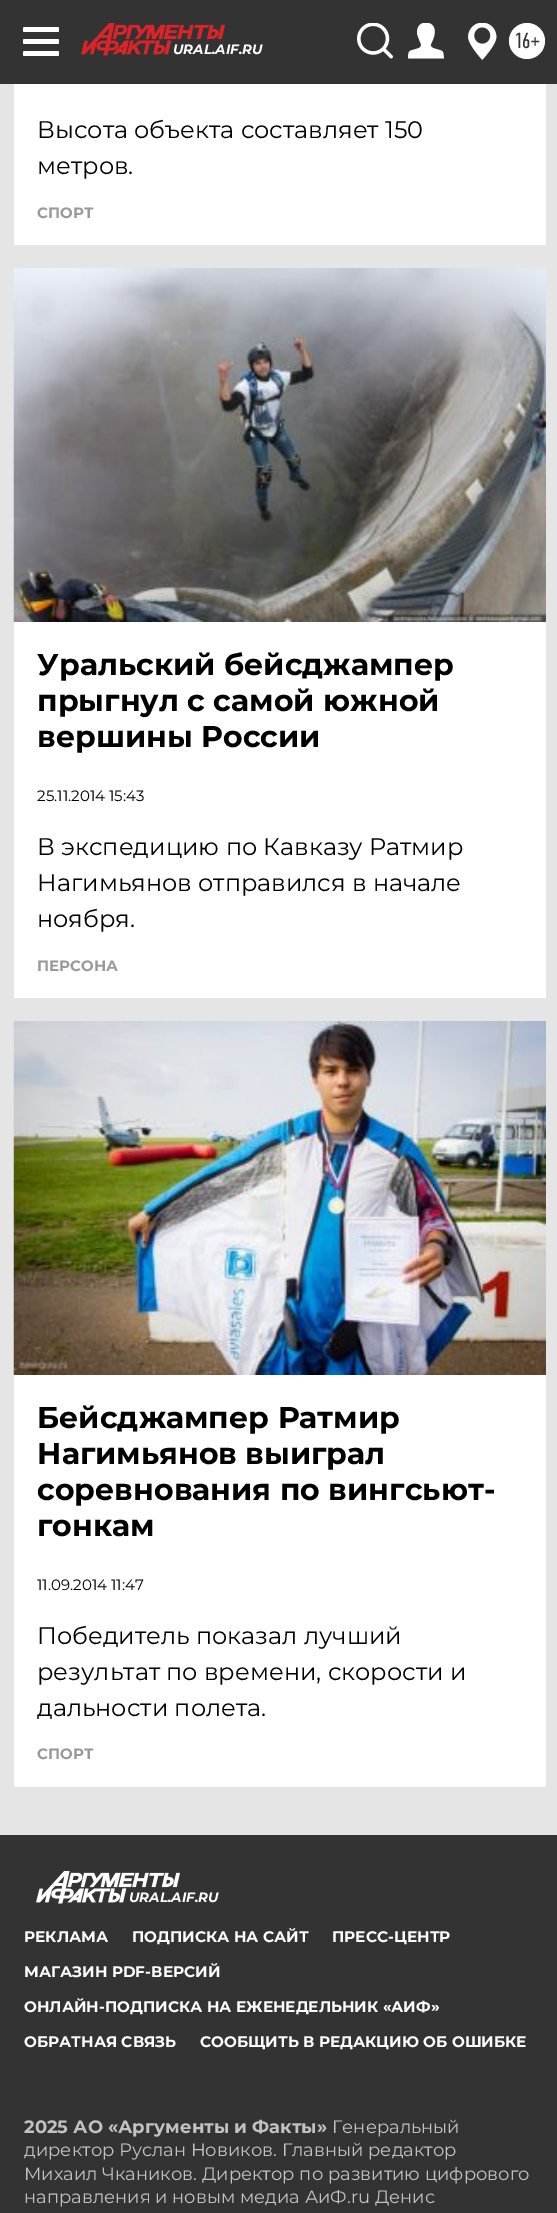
%!PS-Adobe-3.0
%%BoundingBox: 0 0 557 2213
%%LanguageLevel: 3
%%Pages: 1
%%EndComments
%%BeginProlog
/rrect { 5 dict begin { /r /h /w /y /x } { exch def } forall
  x r add y moveto x w add y 2 copy h add r arct x w add y h add x 1 index r arct
  x y h add x y r arct x y 2 copy exch w add exch r arct closepath end } def
/drawimage { 5 dict begin { /h /w /y /x /name } { exch def } forall
  gsave x y translate w h scale
  w h 8 [w 0 0 h 0 0] name (r) file false 3 colorimage grestore end } def
%%EndProlog
%%BeginSetup
<< /PageSize [557 2213] >> setpagedevice
%%EndSetup
%%Page: 1 1
0 2213 translate 1 -1 scale
4 setmiterlimit
0.898 setgray
0 0 557 2213 rectfill
0.2 setgray
0 0 557 84 rectfill
1 setgray
23 27 36 5 1.5 rrect fill
23 39 36 5 1.5 rrect fill
23 51 36 5 1.5 rrect fill
(images/1.raw) 81 23 144 33 drawimage
(images/2.raw) 357 23 36 36 drawimage
(images/3.raw) 408 23 36 36 drawimage
(images/4.raw) 468 23 29 37 drawimage
newpath 527 41 18 0 360 arc closepath fill
14 84 532 161 rectfill
14 622 532 376 rectfill
(images/5.raw) 13 268 533 354 drawimage
14 1375 532 412 rectfill
(images/6.raw) 13 1021 533 354 drawimage
0.2 setgray
0 1835 557 378 rectfill
(images/7.raw) 36 1871 144 33 drawimage
/Montserrat-BoldItalic [13.5 0 0 -13.5 0 0] selectfont
1 setgray
173 54 moveto (URAL.AIF.RU) show
/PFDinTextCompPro-Regular [22 0 0 -22 0 0] selectfont
0.2 setgray
514 48 moveto (16+) show
/Montserrat-Regular [24 0 0 -24 0 0] selectfont
0 setgray
37 138 moveto (Высота объекта составляет 150) show
37 174 moveto (метров.) show
/Montserrat-Bold [15 0 0 -15 0 0] selectfont
0.6 setgray
37 218 moveto (СПОРТ) show
/Montserrat-Bold [30 0 0 -30 0 0] selectfont
0 setgray
37 675 moveto (Уральский бейсджампер) show
37 711 moveto (прыгнул с самой южной) show
37 747 moveto (вершины России) show
/Montserrat-Regular [15 0 0 -15 0 0] selectfont
37 801 moveto (25.11.2014 15:43) show
/Montserrat-Regular [24 0 0 -24 0 0] selectfont
37 855 moveto (В экспедицию по Кавказу Ратмир) show
37 891 moveto (Нагимьянов отправился в начале) show
37 927 moveto (ноября.) show
/Montserrat-Bold [15 0 0 -15 0 0] selectfont
0.6 setgray
37 971 moveto (ПЕРСОНА) show
/Montserrat-Bold [30 0 0 -30 0 0] selectfont
0 setgray
37 1428 moveto (Бейсджампер Ратмир) show
37 1464 moveto (Нагимьянов выиграл) show
37 1500 moveto (соревнования по вингсьют-) show
37 1536 moveto (гонкам) show
/Montserrat-Regular [15 0 0 -15 0 0] selectfont
37 1590 moveto (11.09.2014 11:47) show
/Montserrat-Regular [24 0 0 -24 0 0] selectfont
37 1644 moveto (Победитель показал лучший) show
37 1680 moveto (результат по времени, скорости и) show
37 1716 moveto (дальности полета.) show
/Montserrat-Bold [15 0 0 -15 0 0] selectfont
0.6 setgray
37 1759 moveto (СПОРТ) show
/Montserrat-BoldItalic [13.5 0 0 -13.5 0 0] selectfont
1 setgray
129 1902 moveto (URAL.AIF.RU) show
/Montserrat-Bold [15.3 0 0 -15.3 0 0] selectfont
24 1942 moveto (РЕКЛАМА) show
132 1942 moveto (ПОДПИСКА НА САЙТ) show
332 1942 moveto (ПРЕСС-ЦЕНТР) show
24 1977 moveto (МАГАЗИН PDF-ВЕРСИЙ) show
24 2012 moveto (ОНЛАЙН-ПОДПИСКА НА ЕЖЕНЕДЕЛЬНИК «АИФ») show
24 2047 moveto (ОБРАТНАЯ СВЯЗЬ) show
200 2047 moveto (СООБЩИТЬ В РЕДАКЦИЮ ОБ ОШИБКЕ) show
/Montserrat-Bold [18 0 0 -18 0 0] selectfont
0.761 setgray
24 2133 moveto (2025 АО «Аргументы и Факты») show
/Montserrat-Regular [18 0 0 -18 0 0] selectfont
332 2133 moveto (Генеральный) show
24 2156 moveto (директор Руслан Новиков. Главный редактор) show
24 2180 moveto (Михаил Чкаников. Директор по развитию цифрового) show
24 2203 moveto (направления и новым медиа АиФ.ru Денис) show
showpage
%%EOF
